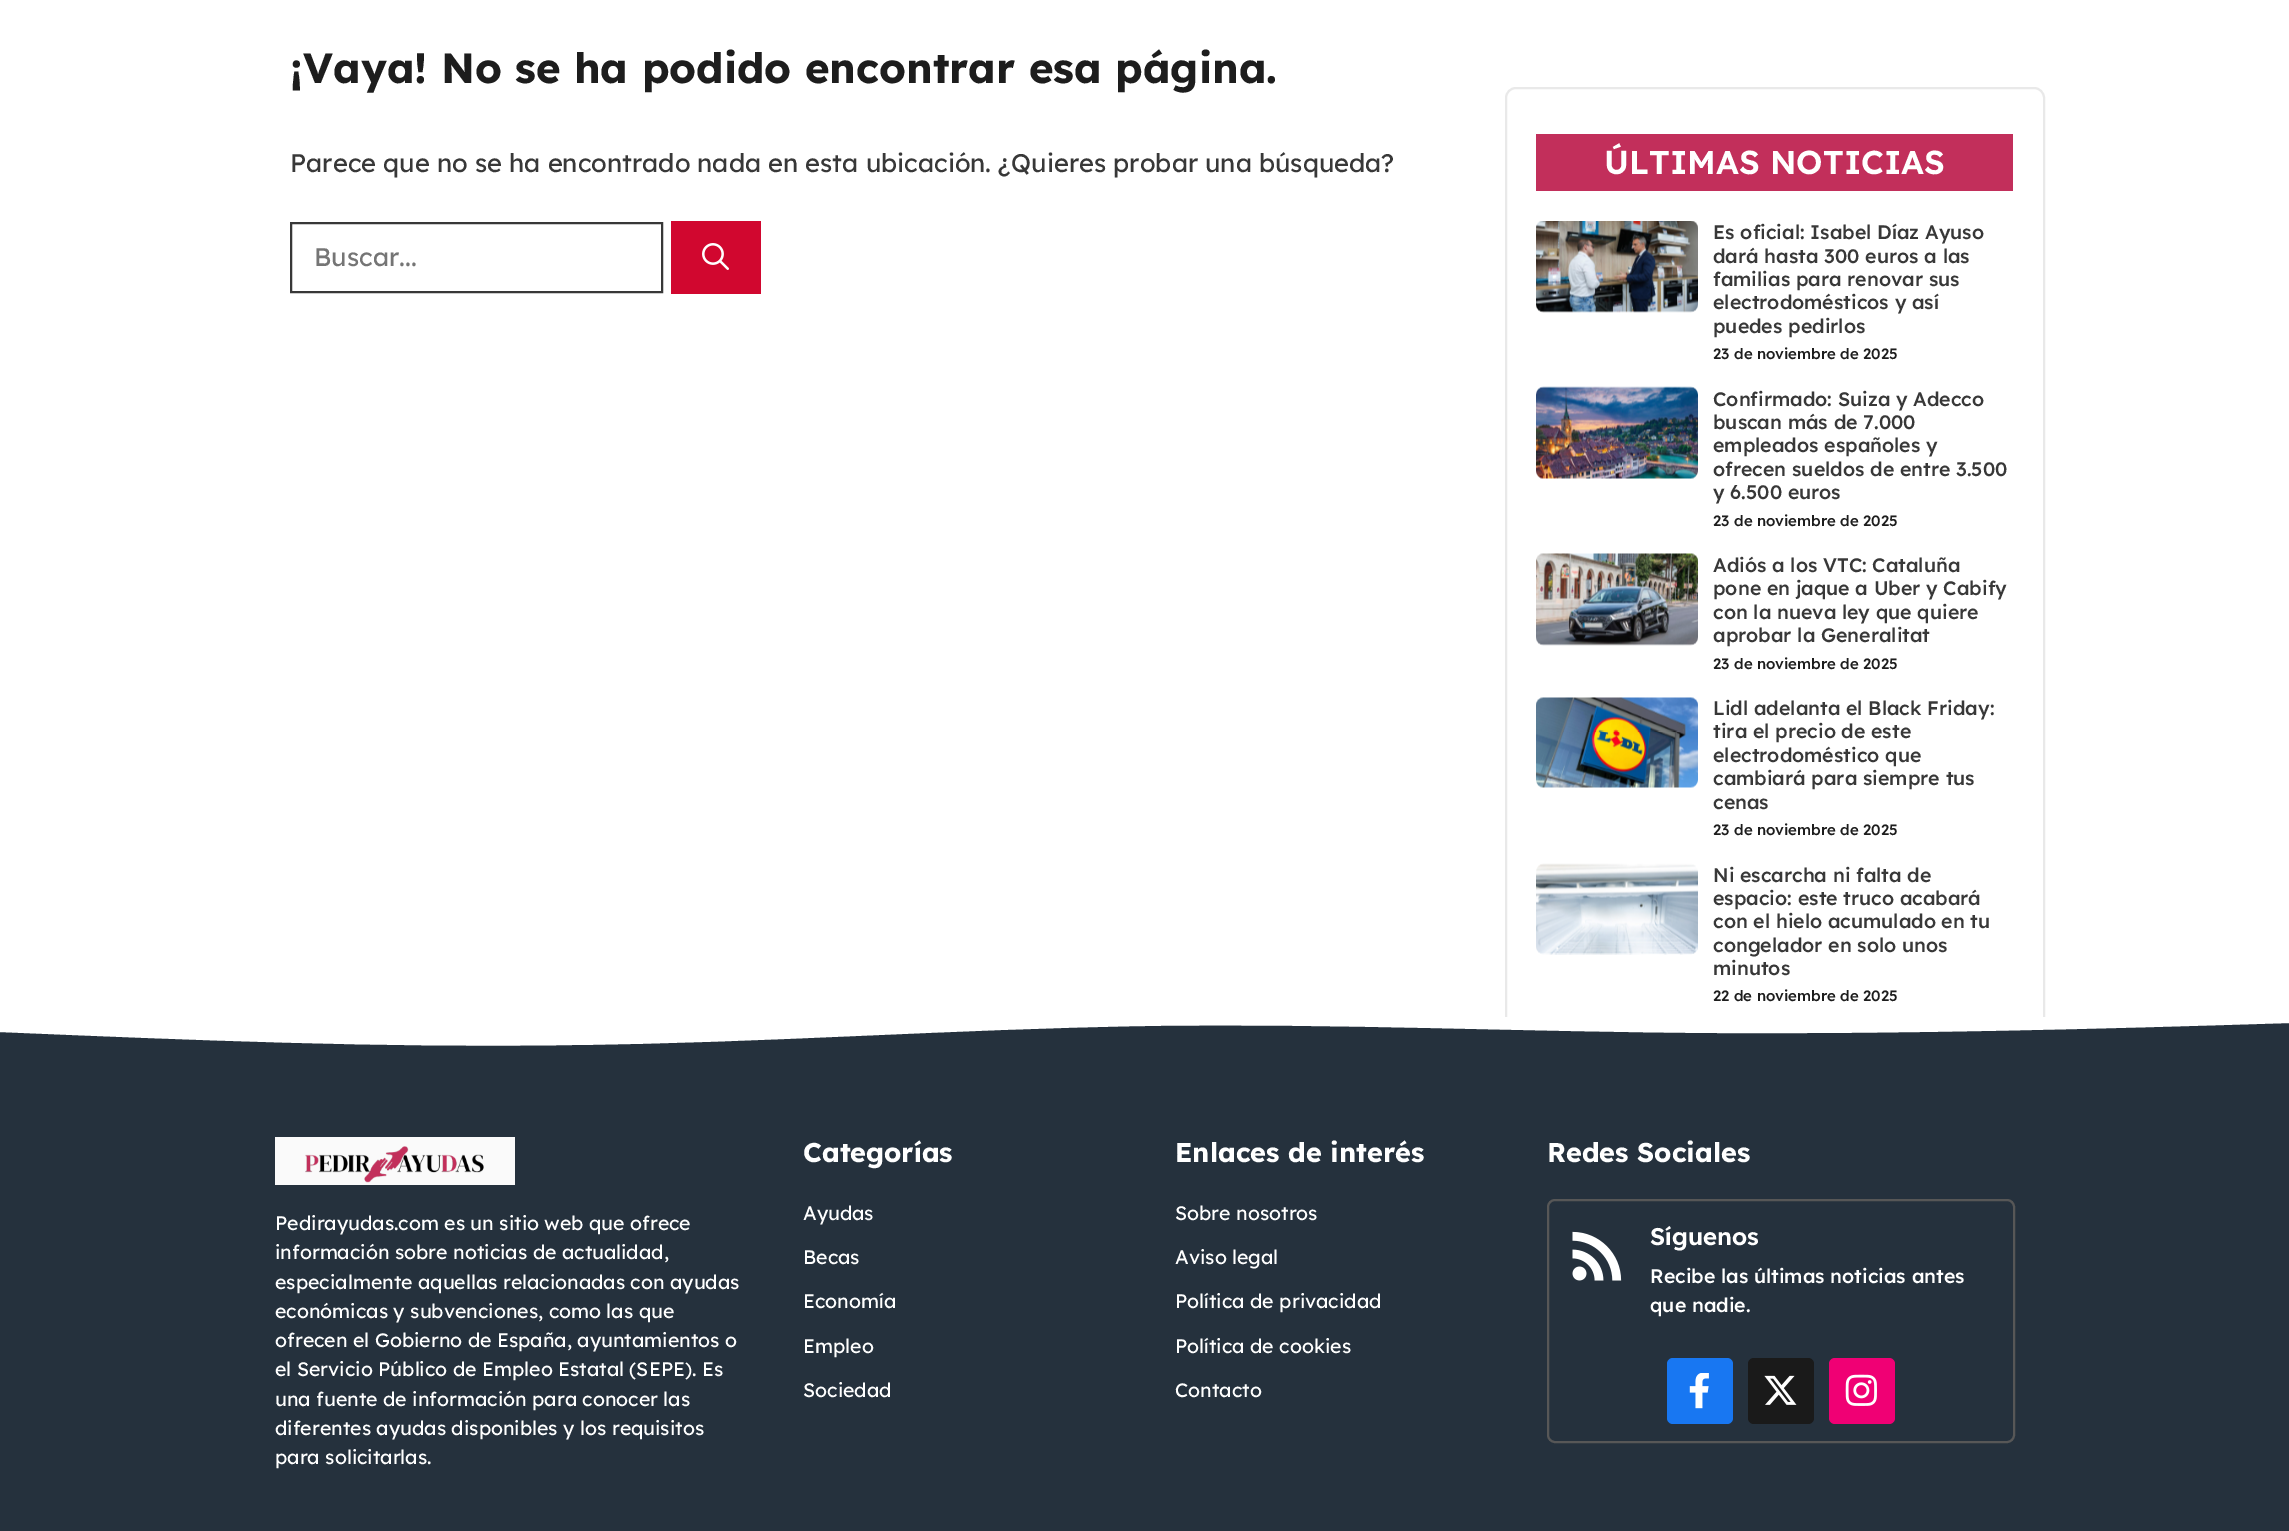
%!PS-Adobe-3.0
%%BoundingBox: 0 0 2289 1531
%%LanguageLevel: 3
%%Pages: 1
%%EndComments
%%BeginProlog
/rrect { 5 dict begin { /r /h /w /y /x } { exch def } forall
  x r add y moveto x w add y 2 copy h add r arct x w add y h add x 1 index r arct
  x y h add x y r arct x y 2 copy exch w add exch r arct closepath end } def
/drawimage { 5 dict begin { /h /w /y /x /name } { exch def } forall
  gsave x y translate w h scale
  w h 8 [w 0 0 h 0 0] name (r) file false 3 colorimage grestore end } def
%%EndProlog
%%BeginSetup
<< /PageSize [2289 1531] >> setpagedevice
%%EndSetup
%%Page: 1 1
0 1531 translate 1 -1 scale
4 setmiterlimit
1 setgray
0 0 2289 1531 rectfill
0.22 setgray
2 setlinewidth
291 223 371 69 rectstroke
0.82 0.027 0.184 setrgbcolor
671 221 90 73 rectfill
(images/1.raw) 702 243 27 27 drawimage
0.914 setgray
1506 88 538 966 10 rrect stroke
0.761 0.184 0.357 setrgbcolor
1536 134 477 57 rectfill
(images/2.raw) 1536 221 162 92 drawimage
(images/3.raw) 1536 386 162 93 drawimage
(images/4.raw) 1536 553 162 93 drawimage
(images/5.raw) 1536 697 162 91 drawimage
(images/6.raw) 1536 863 162 92 drawimage
0.145 0.192 0.239 setrgbcolor
0 1023 2289 508 rectfill
gsave
0 1017 2289 30 rectclip
1 setgray
newpath 0 1016 moveto 2289 1016 lineto 2289 1023 lineto 2098 1029 1908 1034 1717 1033 curveto 1526 1032 1335 1023 1145 1026 curveto 954 1029 763 1043 572 1045 curveto 381 1048 191 1040 0 1032 curveto closepath fill
grestore
0.98 setgray
275 1137 240 48 rectfill
(images/7.raw) 305 1146 179 37 drawimage
0.341 setgray
1548 1200 466 242 7 rrect stroke
(images/8.raw) 1572 1231 50 50 drawimage
0.094 0.467 0.949 setrgbcolor
1667 1358 66 66 6 rrect fill
(images/9.raw) 1689 1373 20 36 drawimage
0.102 setgray
1748 1358 66 66 6 rrect fill
(images/10.raw) 1764 1375 33 30 drawimage
0.941 0 0.455 setrgbcolor
1829 1358 66 66 6 rrect fill
(images/11.raw) 1845 1374 32 32 drawimage
/LexendDeca-Bold [42 0 0 -42 0 0] selectfont
0.114 setgray
290 83 moveto (¡Vaya! No se ha podido encontrar esa página.) show
/LexendDeca-Regular [25.5 0 0 -25.5 0 0] selectfont
0.22 setgray
290 172 moveto (Parece que no se ha encontrado nada en esta ubicación. ¿Quieres probar una búsqueda?) show
0.459 setgray
314 266 moveto (Buscar...) show
/LexendDeca-SemiBold [33 0 0 -33 0 0] selectfont
1 setgray
1604 174 moveto (ÚLTIMAS NOTICIAS) show
/LexendDeca-Medium [19.5 0 0 -19.5 0 0] selectfont
0.22 setgray
1713 239 moveto (Es oficial: Isabel Díaz Ayuso) show
1713 263 moveto (dará hasta 300 euros a las) show
1713 286 moveto (familias para renovar sus) show
1713 309 moveto (electrodomésticos y así) show
1713 333 moveto (puedes pedirlos) show
/LexendDeca-Medium [15 0 0 -15 0 0] selectfont
0.114 setgray
1713 359 moveto (23 de noviembre de 2025) show
/LexendDeca-Medium [19.5 0 0 -19.5 0 0] selectfont
0.22 setgray
1713 406 moveto (Confirmado: Suiza y Adecco) show
1713 429 moveto (buscan más de 7.000) show
1713 452 moveto (empleados españoles y) show
1713 476 moveto (ofrecen sueldos de entre 3.500) show
1713 499 moveto (y 6.500 euros) show
/LexendDeca-Medium [15 0 0 -15 0 0] selectfont
0.114 setgray
1713 526 moveto (23 de noviembre de 2025) show
/LexendDeca-Medium [19.5 0 0 -19.5 0 0] selectfont
0.22 setgray
1713 572 moveto (Adiós a los VTC: Cataluña) show
1713 595 moveto (pone en jaque a Uber y Cabify) show
1713 619 moveto (con la nueva ley que quiere) show
1713 642 moveto (aprobar la Generalitat) show
/LexendDeca-Medium [15 0 0 -15 0 0] selectfont
0.114 setgray
1713 669 moveto (23 de noviembre de 2025) show
/LexendDeca-Medium [19.5 0 0 -19.5 0 0] selectfont
0.22 setgray
1713 715 moveto (Lidl adelanta el Black Friday:) show
1713 738 moveto (tira el precio de este) show
1713 762 moveto (electrodoméstico que) show
1713 785 moveto (cambiará para siempre tus) show
1713 809 moveto (cenas) show
/LexendDeca-Medium [15 0 0 -15 0 0] selectfont
0.114 setgray
1713 835 moveto (23 de noviembre de 2025) show
/LexendDeca-Medium [19.5 0 0 -19.5 0 0] selectfont
0.22 setgray
1713 882 moveto (Ni escarcha ni falta de) show
1713 905 moveto (espacio: este truco acabará) show
1713 928 moveto (con el hielo acumulado en tu) show
1713 952 moveto (congelador en solo unos) show
1713 975 moveto (minutos) show
/LexendDeca-Medium [15 0 0 -15 0 0] selectfont
0.114 setgray
1713 1001 moveto (22 de noviembre de 2025) show
/LexendDeca-Regular [19.5 0 0 -19.5 0 0] selectfont
1 setgray
275 1230 moveto (Pedirayudas.com es un sitio web que ofrece) show
275 1259 moveto (información sobre noticias de actualidad,) show
275 1289 moveto (especialmente aquellas relacionadas con ayudas) show
275 1318 moveto (económicas y subvenciones, como las que) show
275 1347 moveto (ofrecen el Gobierno de España, ayuntamientos o) show
275 1376 moveto (el Servicio Público de Empleo Estatal \(SEPE\). Es) show
275 1406 moveto (una fuente de información para conocer las) show
275 1435 moveto (diferentes ayudas disponibles y los requisitos) show
275 1464 moveto (para solicitarlas.) show
/LexendDeca-Bold [27 0 0 -27 0 0] selectfont
803 1162 moveto (Categorías) show
/LexendDeca-Regular [19.5 0 0 -19.5 0 0] selectfont
803 1220 moveto (Ayudas) show
803 1264 moveto (Becas) show
803 1308 moveto (Economía) show
803 1353 moveto (Empleo) show
803 1397 moveto (Sociedad) show
/LexendDeca-Bold [27 0 0 -27 0 0] selectfont
1175 1162 moveto (Enlaces de interés) show
/LexendDeca-Regular [19.5 0 0 -19.5 0 0] selectfont
1175 1220 moveto (Sobre nosotros) show
1175 1264 moveto (Aviso legal) show
1175 1308 moveto (Política de privacidad) show
1175 1353 moveto (Política de cookies) show
1175 1397 moveto (Contacto) show
/LexendDeca-Bold [27 0 0 -27 0 0] selectfont
1547 1162 moveto (Redes Sociales) show
/LexendDeca-SemiBold [24 0 0 -24 0 0] selectfont
1650 1245 moveto (Síguenos) show
/LexendDeca-Medium [19.5 0 0 -19.5 0 0] selectfont
1650 1283 moveto (Recibe las últimas noticias antes) show
1650 1312 moveto (que nadie.) show
showpage
%%EOF
